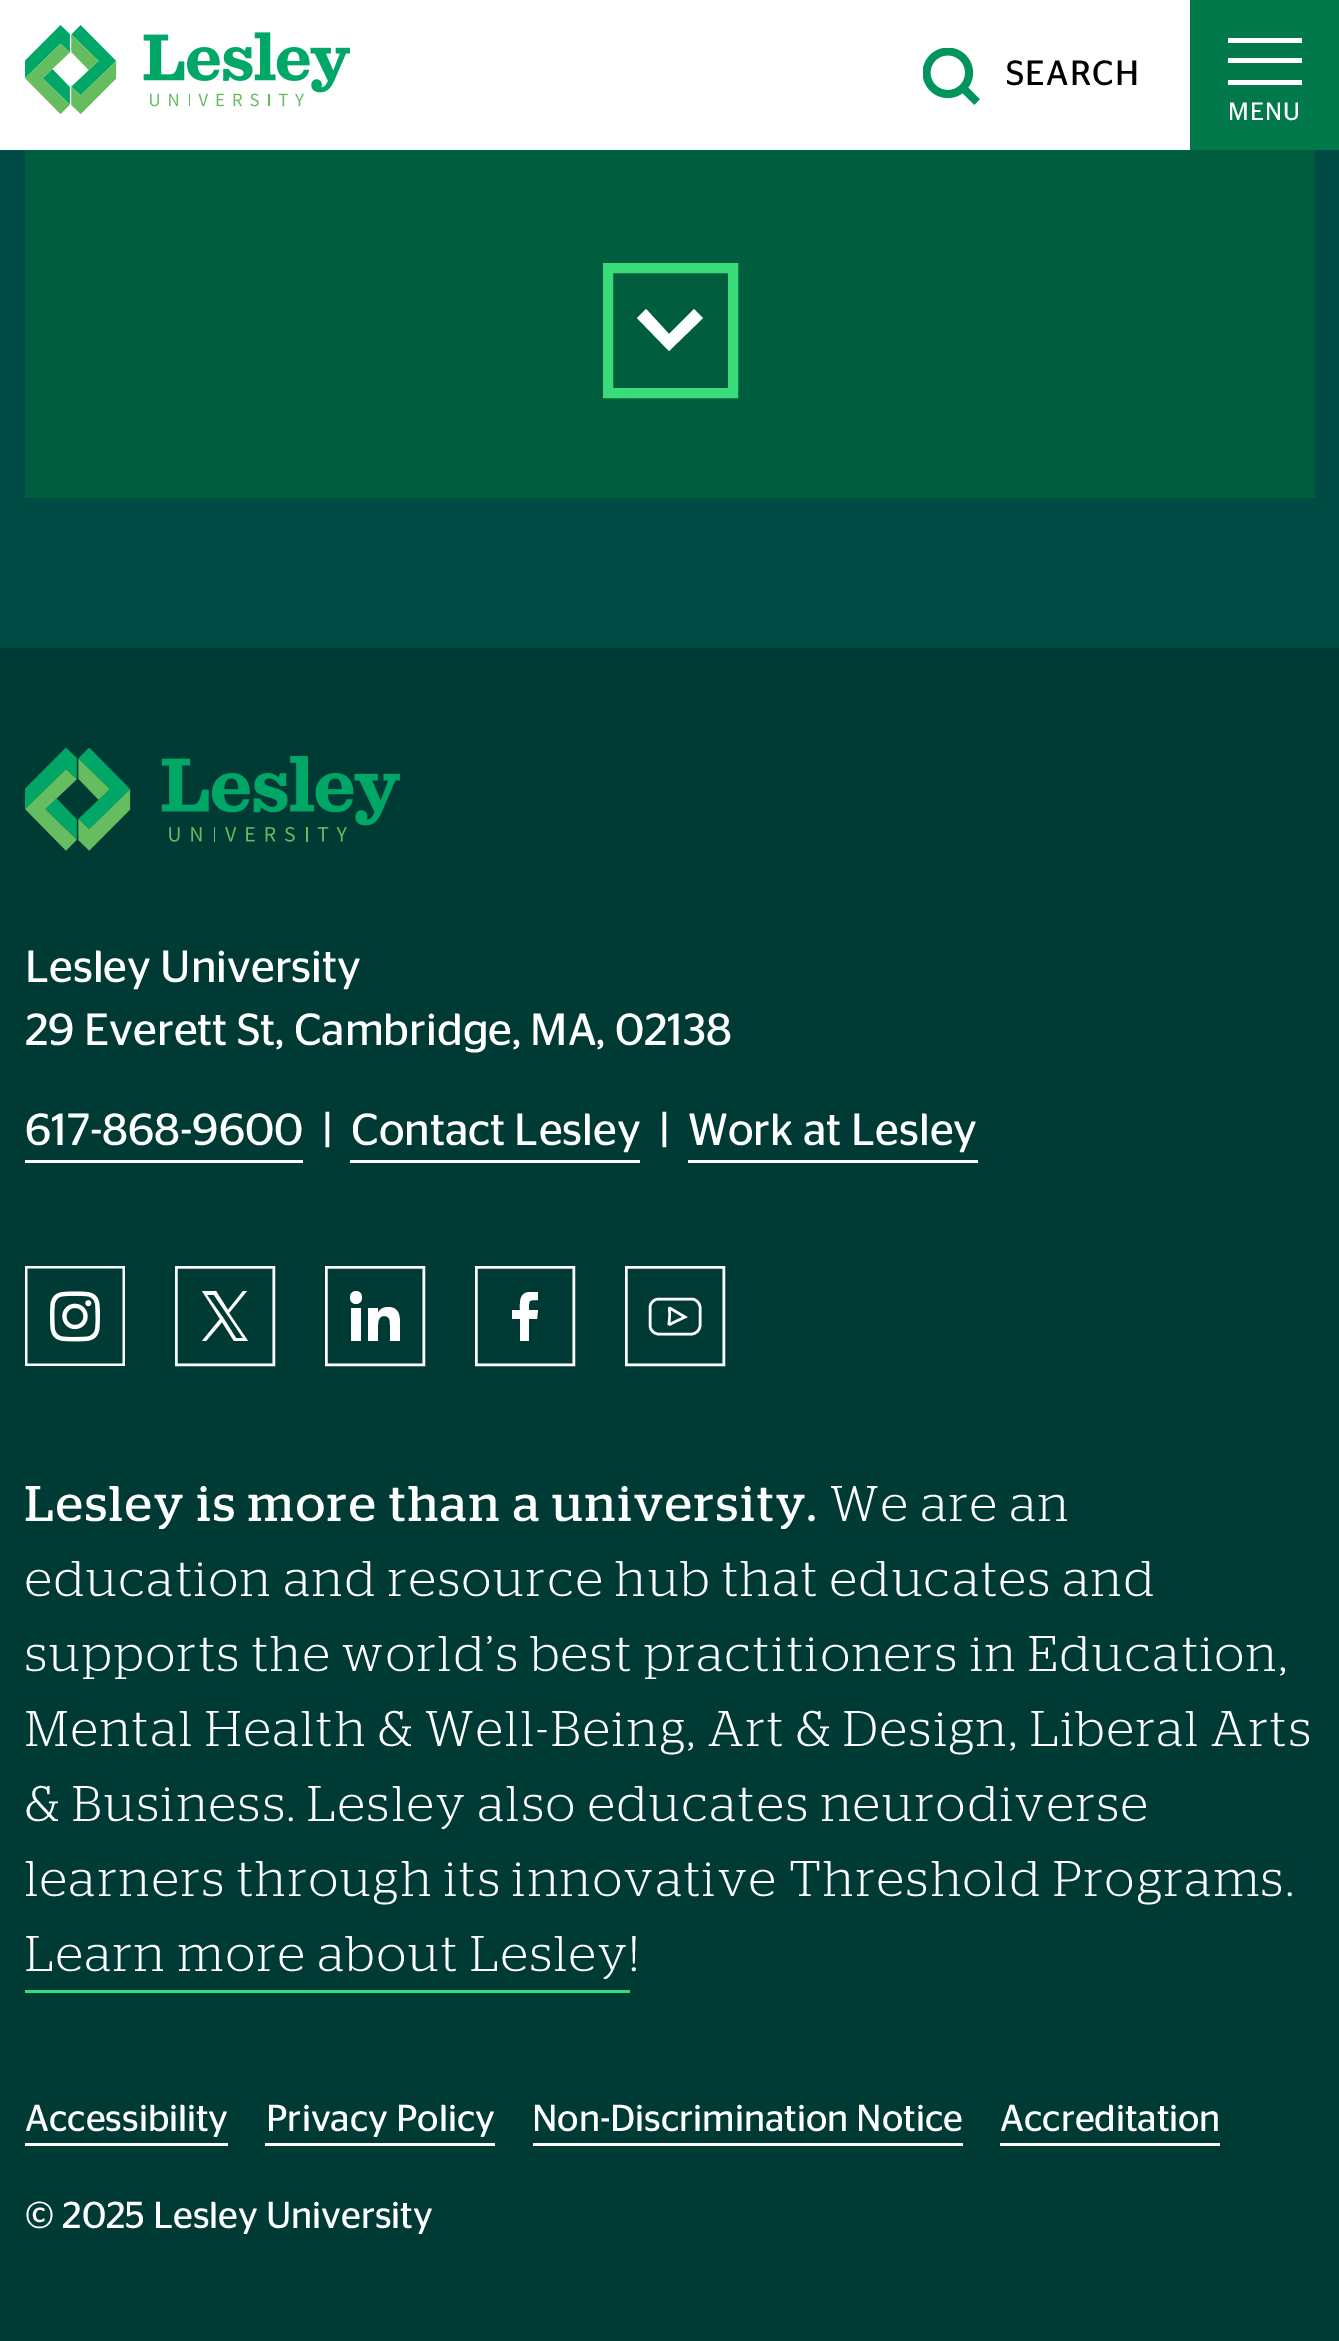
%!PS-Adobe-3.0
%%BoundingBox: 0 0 1339 2341
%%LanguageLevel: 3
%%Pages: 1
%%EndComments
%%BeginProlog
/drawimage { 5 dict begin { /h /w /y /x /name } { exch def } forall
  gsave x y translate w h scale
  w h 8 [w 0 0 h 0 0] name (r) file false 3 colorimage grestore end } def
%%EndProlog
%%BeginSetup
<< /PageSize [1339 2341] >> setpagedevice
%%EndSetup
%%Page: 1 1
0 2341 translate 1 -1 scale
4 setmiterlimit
0 0.227 0.208 setrgbcolor
0 0 1339 2341 rectfill
1 setgray
0 0 1190 150 rectfill
(images/1.raw) 25 25 325 89 drawimage
(images/2.raw) 923 48 57 57 drawimage
0.008 0.475 0.294 setrgbcolor
1190 0 149 150 rectfill
1 setgray
1228 38 74 5 rectfill
1228 58 74 5 rectfill
1228 80 74 5 rectfill
0 0.298 0.271 setrgbcolor
0 150 1339 498 rectfill
0 0.369 0.243 setrgbcolor
25 150 1290 348 rectfill
0.227 0.863 0.475 setrgbcolor
10 setlinewidth
608 268 125 125 rectstroke
1 setgray
newpath 646 309 moveto 669 334 lineto 694 309 lineto 703 318 lineto 669 351 lineto 637 318 lineto closepath eofill
(images/3.raw) 25 748 375 103 drawimage
25 1160 278 3 rectfill
350 1160 290 3 rectfill
688 1160 290 3 rectfill
(images/4.raw) 25 1266 100 100 drawimage
2.5 setlinewidth
176.25 1267.25 97.5 97.5 rectstroke
newpath 229 1313 moveto 247 1291 lineto 243 1291 lineto 228 1310 lineto 216 1291 lineto 202 1291 lineto 220 1319 lineto 202 1341 lineto 206 1341 lineto 222 1322 lineto 234 1341 lineto 248 1341 lineto closepath 224 1319 moveto 207 1295 lineto 214 1295 lineto 243 1338 lineto 236 1338 lineto closepath fill
326.25 1267.25 97.5 97.5 rectstroke
newpath 361 1341 moveto 351 1341 lineto 351 1308 lineto 361 1308 lineto closepath 356 1304 moveto 348 1304 348 1291 356 1291 curveto 364 1291 364 1304 356 1304 curveto closepath 400 1341 moveto 390 1341 lineto 390 1325 lineto 390 1321 390 1316 384 1316 curveto 379 1316 378 1321 378 1325 curveto 378 1341 lineto 368 1341 lineto 368 1308 lineto 378 1308 lineto 378 1313 lineto 379 1310 383 1307 388 1307 curveto 398 1307 400 1314 400 1323 curveto closepath fill
476.25 1267.25 97.5 97.5 rectstroke
newpath 529 1341 moveto 529 1319 lineto 537 1319 lineto 538 1310 lineto 529 1310 lineto 529 1300 528 1300 538 1300 curveto 538 1292 lineto 529 1292 lineto 519 1293 520 1302 520 1310 curveto 512 1310 lineto 512 1319 lineto 520 1319 lineto 520 1341 lineto closepath eofill
626.25 1267.25 97.5 97.5 rectstroke
newpath 685 1317 moveto 672.5 1323 lineto 667 1326 669.5 1324.5 669.5 1316.5 curveto 669.5 1311.5 lineto 669.5 1309 668.5 1307.5 670.5 1308.5 curveto closepath 691.5 1299 moveto 658.5 1299 lineto 654 1299 650 1303 650 1307.5 curveto 650 1325.5 lineto 650 1330 654 1334 658.5 1334 curveto 691.5 1334 lineto 696 1334 700 1330 700 1325.5 curveto 700 1307.5 lineto 700 1303 696 1299 691.5 1299 curveto closepath stroke
0.227 0.863 0.475 setrgbcolor
25 1990 605 3 rectfill
1 setgray
25 2143 203 3 rectfill
265 2143 230 3 rectfill
533 2143 430 3 rectfill
1000 2143 220 3 rectfill
/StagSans-Regular [35 0 0 -35 0 0] selectfont
0 setgray
1006 85 moveto 1.25 0 (SEARCH) ashow
/StagSans-Regular [25 0 0 -25 0 0] selectfont
1 setgray
1228 120 moveto 1.25 0 (MENU) ashow
/StagSans-Regular [45 0 0 -45 0 0] selectfont
25 982 moveto (Lesley University) show
25 1045 moveto (29 Everett St, Cambridge, MA, 02138) show
25 1145 moveto (617-868-9600) show
323 1145 moveto (|) show
351 1145 moveto (Contact Lesley) show
660 1145 moveto (|) show
688 1145 moveto (Work at Lesley) show
/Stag-Regular [50 0 0 -50 0 0] selectfont
25 1521 moveto 2.5 0 (Lesley is more than a university.) ashow
/Stag-Light [50 0 0 -50 0 0] selectfont
830 1521 moveto 2.5 0 (We are an) ashow
25 1596 moveto 2.5 0 (education and resource hub that educates and) ashow
25 1671 moveto 2.5 0 (supports the world’s best practitioners in Education,) ashow
25 1746 moveto 2.5 0 (Mental Health & Well-Being, Art & Design, Liberal Arts) ashow
25 1821 moveto 2.5 0 (& Business. Lesley also educates neurodiverse) ashow
25 1896 moveto 2.5 0 (learners through its innovative Threshold Programs.) ashow
25 1971 moveto 2.5 0 (Learn more about Lesley!) ashow
/StagSans-Regular [37.5 0 0 -37.5 0 0] selectfont
25 2131 moveto (Accessibility) show
266 2131 moveto (Privacy Policy) show
532 2131 moveto (Non-Discrimination Notice) show
1000 2131 moveto (Accreditation) show
25 2228 moveto (© 2025 Lesley University) show
showpage
%%EOF
